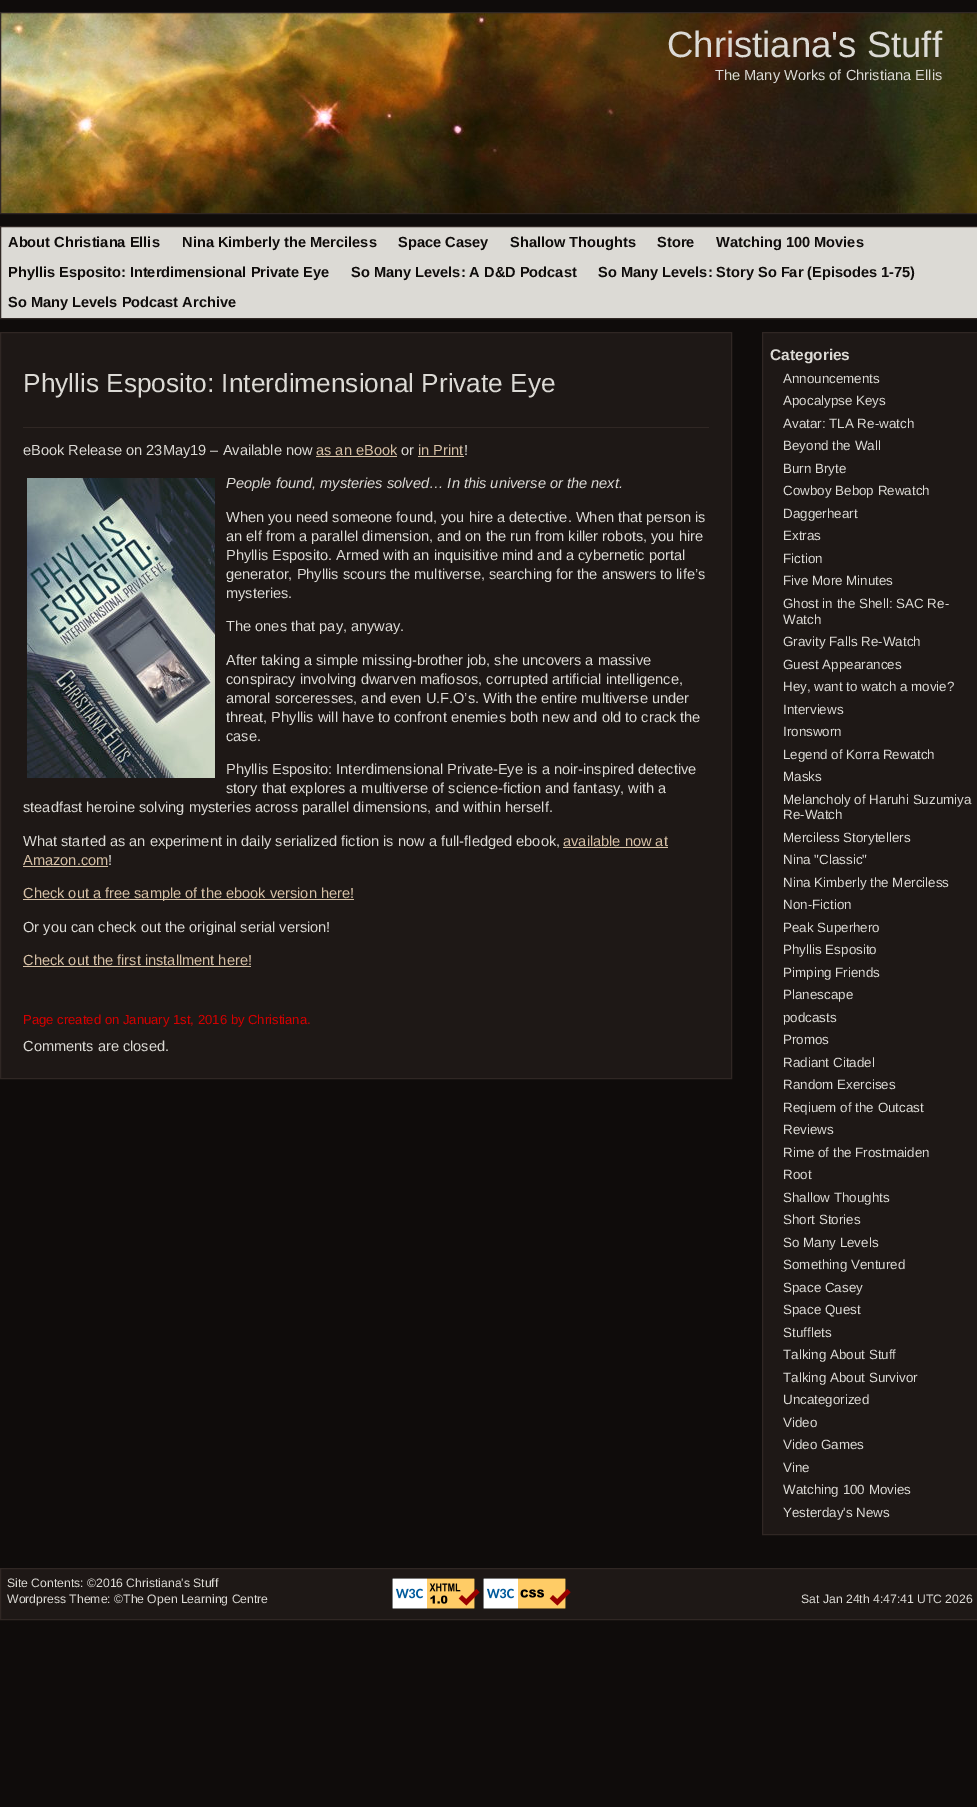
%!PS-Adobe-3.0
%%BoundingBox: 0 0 977 1807
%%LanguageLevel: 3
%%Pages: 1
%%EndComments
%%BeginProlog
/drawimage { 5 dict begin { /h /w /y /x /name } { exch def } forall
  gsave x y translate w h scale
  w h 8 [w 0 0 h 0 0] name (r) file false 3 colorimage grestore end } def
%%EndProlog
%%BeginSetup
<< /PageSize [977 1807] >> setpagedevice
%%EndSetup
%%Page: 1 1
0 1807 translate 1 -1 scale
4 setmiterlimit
0.059 0.047 0.043 setrgbcolor
0 0 977 1807 rectfill
(images/1.raw) 1 13 976 200 drawimage
0.188 0.153 0.141 setrgbcolor
0.5 12.5 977 201 rectstroke
0.863 0.855 0.835 setrgbcolor
newpath 0.5 226.5 moveto 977.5 226.5 lineto 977.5 318.5 lineto 0.5 318.5 lineto closepath gsave fill grestore
0.188 0.153 0.141 setrgbcolor
stroke
0.118 0.094 0.086 setrgbcolor
newpath 0.5 332.5 moveto 731.5 332.5 lineto 731.5 1078.5 lineto 0.5 1078.5 lineto closepath gsave fill grestore
0.188 0.153 0.141 setrgbcolor
stroke
23 427 686 1 rectfill
0.843 0.757 0.651 setrgbcolor
316 456 81 1 rectfill
418 456 46 1 rectfill
(images/2.raw) 27 478 188 300 drawimage
563 847 105 1 rectfill
23 866 85 1 rectfill
23 899 331 1 rectfill
23 966 228 1 rectfill
0.118 0.094 0.086 setrgbcolor
newpath 762.5 332.5 moveto 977.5 332.5 lineto 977.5 1534.5 lineto 762.5 1534.5 lineto closepath gsave fill grestore
0.188 0.153 0.141 setrgbcolor
stroke
0.118 0.094 0.086 setrgbcolor
newpath 0.5 1568.5 moveto 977.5 1568.5 lineto 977.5 1619.5 lineto 0.5 1619.5 lineto closepath gsave fill grestore
0.188 0.153 0.141 setrgbcolor
stroke
(images/3.raw) 392 1578 88 31 drawimage
(images/4.raw) 483 1578 88 31 drawimage
/LiberationSans-Regular [36.5 0 0 -36.5 0 0] selectfont
0.863 0.855 0.835 setrgbcolor
667 57 moveto (Christiana's Stuff) show
/LiberationSans-Regular [14.6 0 0 -14.6 0 0] selectfont
715 80 moveto (The Many Works of Christiana Ellis) show
/LiberationSans-Bold [14.6 0 0 -14.6 0 0] selectfont
0.059 0.047 0.043 setrgbcolor
8 247 moveto (About Christiana Ellis) show
182 247 moveto (Nina Kimberly the Merciless) show
398 247 moveto (Space Casey) show
510 247 moveto (Shallow Thoughts) show
657 247 moveto (Store) show
716 247 moveto (Watching 100 Movies) show
8 277 moveto (Phyllis Esposito: Interdimensional Private Eye) show
351 277 moveto (So Many Levels: A D&D Podcast) show
598 277 moveto (So Many Levels: Story So Far \(Episodes 1-75\)) show
8 307 moveto (So Many Levels Podcast Archive) show
/LiberationSans-Regular [26.25 0 0 -26.25 0 0] selectfont
0.863 0.855 0.835 setrgbcolor
23 392 moveto (Phyllis Esposito: Interdimensional Private Eye) show
/LiberationSans-Regular [14.6 0 0 -14.6 0 0] selectfont
23 455 moveto (eBook Release on 23May19 – Available now) show
0.843 0.757 0.651 setrgbcolor
316 455 moveto (as an eBook) show
0.863 0.855 0.835 setrgbcolor
401 455 moveto (or) show
0.843 0.757 0.651 setrgbcolor
418 455 moveto (in Print) show
0.863 0.855 0.835 setrgbcolor
464 455 moveto (!) show
/LiberationSans-Italic [14.6 0 0 -14.6 0 0] selectfont
226 488 moveto (People found, mysteries solved… In this universe or the next.) show
/LiberationSans-Regular [14.6 0 0 -14.6 0 0] selectfont
226 522 moveto (When you need someone found, you hire a detective. When that person is) show
226 541 moveto (an elf from a parallel dimension, and on the run from killer robots, you hire) show
226 560 moveto (Phyllis Esposito. Armed with an inquisitive mind and a cybernetic portal) show
226 579 moveto (generator, Phyllis scours the multiverse, searching for the answers to life’s) show
226 598 moveto (mysteries.) show
226 631 moveto (The ones that pay, anyway.) show
226 665 moveto (After taking a simple missing-brother job, she uncovers a massive) show
226 684 moveto (conspiracy involving dwarven mafiosos, corrupted artificial intelligence,) show
226 703 moveto (amoral sorceresses, and even U.F.O’s. With the entire multiverse under) show
226 722 moveto (threat, Phyllis will have to confront enemies both new and old to crack the) show
226 741 moveto (case.) show
226 774 moveto (Phyllis Esposito: Interdimensional Private-Eye is a noir-inspired detective) show
226 793 moveto (story that explores a multiverse of science-fiction and fantasy, with a) show
23 812 moveto (steadfast heroine solving mysteries across parallel dimensions, and within herself.) show
23 846 moveto (What started as an experiment in daily serialized fiction is now a full-fledged ebook,) show
0.843 0.757 0.651 setrgbcolor
563 846 moveto (available now at) show
23 865 moveto (Amazon.com) show
0.863 0.855 0.835 setrgbcolor
108 865 moveto (!) show
0.843 0.757 0.651 setrgbcolor
23 898 moveto (Check out a free sample of the ebook version here!) show
0.863 0.855 0.835 setrgbcolor
23 932 moveto (Or you can check out the original serial version!) show
0.843 0.757 0.651 setrgbcolor
23 965 moveto (Check out the first installment here!) show
/LiberationSans-Regular [13.1 0 0 -13.1 0 0] selectfont
0.831 0 0 setrgbcolor
23 1024 moveto (Page created on January 1st, 2016 by Christiana.) show
/LiberationSans-Regular [14.6 0 0 -14.6 0 0] selectfont
0.863 0.855 0.835 setrgbcolor
23 1051 moveto (Comments are closed.) show
/LiberationSans-Bold [15.5 0 0 -15.5 0 0] selectfont
770 360 moveto (Categories) show
/LiberationSans-Regular [13.4 0 0 -13.4 0 0] selectfont
783 383 moveto (Announcements) show
783 405 moveto (Apocalypse Keys) show
783 428 moveto (Avatar: TLA Re-watch) show
783 450 moveto (Beyond the Wall) show
783 473 moveto (Burn Bryte) show
783 495 moveto (Cowboy Bebop Rewatch) show
783 518 moveto (Daggerheart) show
783 540 moveto (Extras) show
783 563 moveto (Fiction) show
783 585 moveto (Five More Minutes) show
783 608 moveto (Ghost in the Shell: SAC Re-) show
783 624 moveto (Watch) show
783 646 moveto (Gravity Falls Re-Watch) show
783 669 moveto (Guest Appearances) show
783 691 moveto (Hey, want to watch a movie?) show
783 714 moveto (Interviews) show
783 736 moveto (Ironsworn) show
783 759 moveto (Legend of Korra Rewatch) show
783 781 moveto (Masks) show
783 804 moveto (Melancholy of Haruhi Suzumiya) show
783 819 moveto (Re-Watch) show
783 842 moveto (Merciless Storytellers) show
783 864 moveto (Nina "Classic") show
783 887 moveto (Nina Kimberly the Merciless) show
783 909 moveto (Non-Fiction) show
783 932 moveto (Peak Superhero) show
783 954 moveto (Phyllis Esposito) show
783 977 moveto (Pimping Friends) show
783 999 moveto (Planescape) show
783 1022 moveto (podcasts) show
783 1044 moveto (Promos) show
783 1067 moveto (Radiant Citadel) show
783 1089 moveto (Random Exercises) show
783 1112 moveto (Reqiuem of the Outcast) show
783 1134 moveto (Reviews) show
783 1157 moveto (Rime of the Frostmaiden) show
783 1179 moveto (Root) show
783 1202 moveto (Shallow Thoughts) show
783 1224 moveto (Short Stories) show
783 1247 moveto (So Many Levels) show
783 1269 moveto (Something Ventured) show
783 1292 moveto (Space Casey) show
783 1314 moveto (Space Quest) show
783 1337 moveto (Stufflets) show
783 1359 moveto (Talking About Stuff) show
783 1382 moveto (Talking About Survivor) show
783 1404 moveto (Uncategorized) show
783 1427 moveto (Video) show
783 1449 moveto (Video Games) show
783 1472 moveto (Vine) show
783 1494 moveto (Watching 100 Movies) show
783 1517 moveto (Yesterday's News) show
/LiberationSans-Regular [12.2 0 0 -12.2 0 0] selectfont
7 1587 moveto (Site Contents: ©2016 Christiana's Stuff) show
7 1603 moveto (Wordpress Theme: ©The Open Learning Centre) show
801 1603 moveto (Sat Jan 24th 4:47:41 UTC 2026) show
showpage
%%EOF
